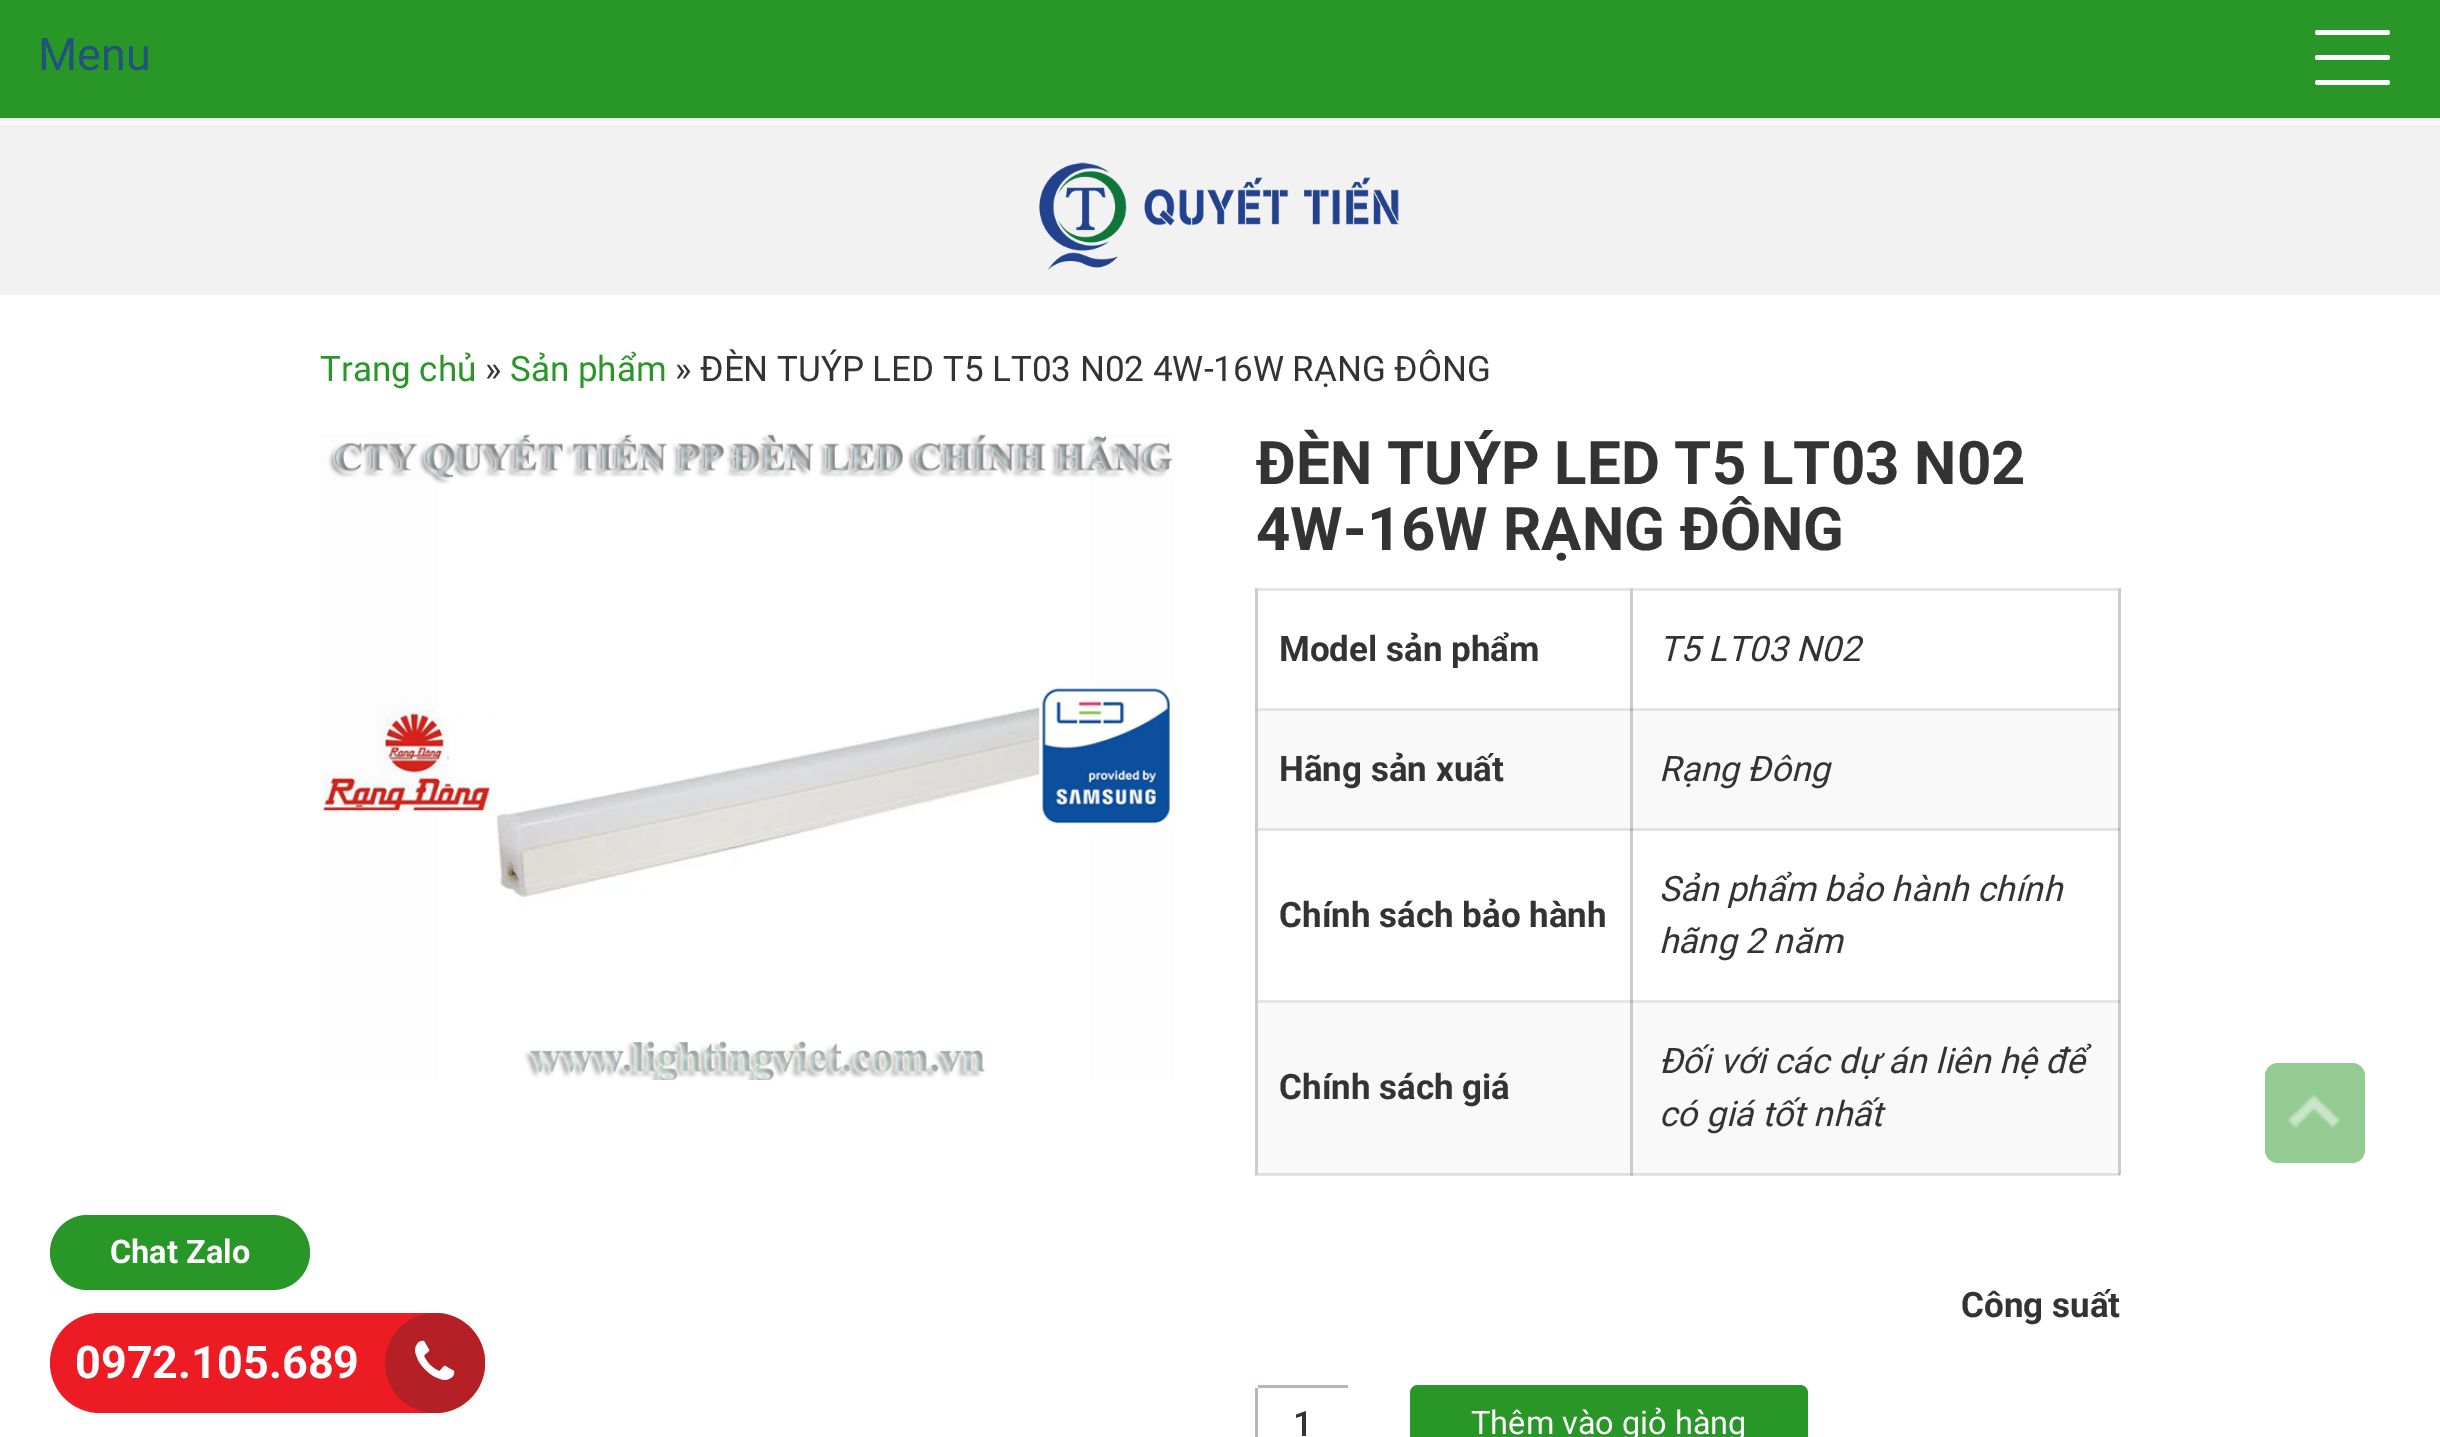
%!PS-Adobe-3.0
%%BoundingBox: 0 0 2440 1437
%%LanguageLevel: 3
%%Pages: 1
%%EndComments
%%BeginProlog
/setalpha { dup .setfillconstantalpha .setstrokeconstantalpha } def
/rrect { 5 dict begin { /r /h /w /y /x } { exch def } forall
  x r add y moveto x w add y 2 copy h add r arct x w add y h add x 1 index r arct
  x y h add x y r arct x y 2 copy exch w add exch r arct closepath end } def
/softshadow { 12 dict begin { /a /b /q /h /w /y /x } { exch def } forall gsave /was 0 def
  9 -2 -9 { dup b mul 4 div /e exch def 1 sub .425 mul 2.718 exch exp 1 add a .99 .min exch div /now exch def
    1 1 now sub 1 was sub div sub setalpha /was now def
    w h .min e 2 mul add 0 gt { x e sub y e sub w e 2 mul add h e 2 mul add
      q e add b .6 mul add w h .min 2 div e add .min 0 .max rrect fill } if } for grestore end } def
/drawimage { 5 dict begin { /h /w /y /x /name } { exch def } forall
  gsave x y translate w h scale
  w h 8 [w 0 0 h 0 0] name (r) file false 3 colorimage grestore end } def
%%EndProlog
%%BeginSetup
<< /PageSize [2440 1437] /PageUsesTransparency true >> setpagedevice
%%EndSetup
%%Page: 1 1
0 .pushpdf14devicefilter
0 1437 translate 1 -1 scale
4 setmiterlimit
1 setgray
0 0 2440 1437 rectfill
0.902 setgray
1255 708 865 2 rectfill
1255 830 865 1 rectfill
1255 1000 865 3 rectfill
1255 1175 865 1 rectfill
0.812 setgray
1630 1175 3 1 rectfill
0.949 setgray
0 125 2440 170 rectfill
0 setgray
0 3 2440 117 0 4 0.09 softshadow
0.157 0.592 0.153 setrgbcolor
0 0 2440 118 rectfill
1 setgray
2315 80 75 5 2.5 rrect fill
2315 30 75 5 2.5 rrect fill
2315 55 75 5 2.5 rrect fill
(images/1.raw) 1039 162 360 108 drawimage
0.58 0.796 0.576 setrgbcolor
2265 1063 100 100 13 rrect fill
(images/2.raw) 2287 1094 54 34 drawimage
0.157 0.592 0.153 setrgbcolor
50 1215 260 75 37.5 rrect fill
0.929 0.11 0.141 setrgbcolor
50 1313 435 100 50 rrect fill
0.71 0.125 0.149 setrgbcolor
newpath 435 1363 50 0 360 arc closepath fill
(images/3.raw) 415 1340 40 40 drawimage
(images/4.raw) 320 434 855 646 drawimage
0.902 setgray
1255 588 865 3 rectfill
0.878 setgray
1258 710 862 1 rectfill
1258 828 862 2 rectfill
1258 1173 862 2 rectfill
0.8 setgray
2118 828 3 347 rectfill
0.722 setgray
2118 828 2 3 rectfill
0.8 setgray
2118 708 3 122 rectfill
0.722 setgray
2118 708 2 3 rectfill
0.8 setgray
2118 588 3 122 rectfill
0.722 setgray
2118 708 2 2 rectfill
0.8 setgray
1630 588 3 587 rectfill
0.722 setgray
1630 708 3 2 rectfill
0.976 setgray
1258 711 372 117 rectfill
0.8 setgray
1255 588 3 587 rectfill
0.722 setgray
1255 710 3 1 rectfill
0.976 setgray
1633 711 485 117 rectfill
0.722 setgray
2118 828 2 2 rectfill
0.651 setgray
1630 710 3 1 rectfill
0.722 setgray
1630 828 3 2 rectfill
1255 830 3 1 rectfill
2118 1000 2 3 rectfill
0.651 setgray
1630 830 3 1 rectfill
0.722 setgray
1630 1000 3 3 rectfill
0.976 setgray
1258 1003 372 170 rectfill
1633 1003 485 170 rectfill
0.722 setgray
2118 1173 2 2 rectfill
1630 1173 3 2 rectfill
0.733 0.702 0.725 setrgbcolor
1258 1385 90 3 rectfill
1255 1388 3 49 rectfill
0.157 0.592 0.153 setrgbcolor
1410 1385 398 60 8 rrect fill
/Roboto-Regular [45 0 0 -45 0 0] selectfont
0.137 0.322 0.486 setrgbcolor
38 70 moveto (Menu) show
/Roboto-Bold [32.5 0 0 -32.5 0 0] selectfont
1 setgray
110 1263 moveto (Chat Zalo) show
/Roboto-Bold [45 0 0 -45 0 0] selectfont
75 1378 moveto (0972.105.689) show
/Roboto-Regular [35 0 0 -35 0 0] selectfont
0.157 0.592 0.153 setrgbcolor
320 381 moveto (Trang chủ) show
0.2 setgray
485 381 moveto (») show
0.157 0.592 0.153 setrgbcolor
510 381 moveto (Sản phẩm) show
0.2 setgray
675 381 moveto (» ĐÈN TUÝP LED T5 LT03 N02 4W-16W RẠNG ĐÔNG) show
/Roboto-Bold [60 0 0 -60 0 0] selectfont
1256 484 moveto (ĐÈN TUÝP LED T5 LT03 N02) show
1256 550 moveto (4W-16W RẠNG ĐÔNG) show
/Roboto-Bold [35 0 0 -35 0 0] selectfont
1279 661 moveto (Model sản phẩm) show
/Roboto-Italic [35 0 0 -35 0 0] selectfont
1659 661 moveto (T5 LT03 N02) show
/Roboto-Bold [35 0 0 -35 0 0] selectfont
1279 781 moveto (Hãng sản xuất) show
/Roboto-Italic [35 0 0 -35 0 0] selectfont
1659 781 moveto (Rạng Đông) show
/Roboto-Bold [35 0 0 -35 0 0] selectfont
1279 927 moveto (Chính sách bảo hành) show
/Roboto-Italic [35 0 0 -35 0 0] selectfont
1659 901 moveto (Sản phẩm bảo hành chính) show
1659 953 moveto (hãng 2 năm) show
/Roboto-Bold [35 0 0 -35 0 0] selectfont
1279 1099 moveto (Chính sách giá) show
/Roboto-Italic [35 0 0 -35 0 0] selectfont
1659 1073 moveto (Đối với các dự án liên hệ để) show
1659 1126 moveto (có giá tốt nhất) show
/Roboto-Bold [35 0 0 -35 0 0] selectfont
1961 1317 moveto (Công suất) show
/Roboto-Medium [35 0 0 -35 0 0] selectfont
1293 1436 moveto (1) show
/Roboto-Regular [32.5 0 0 -32.5 0 0] selectfont
1 setgray
1471 1434 moveto (Thêm vào giỏ hàng) show
.poppdf14devicefilter showpage
%%EOF
